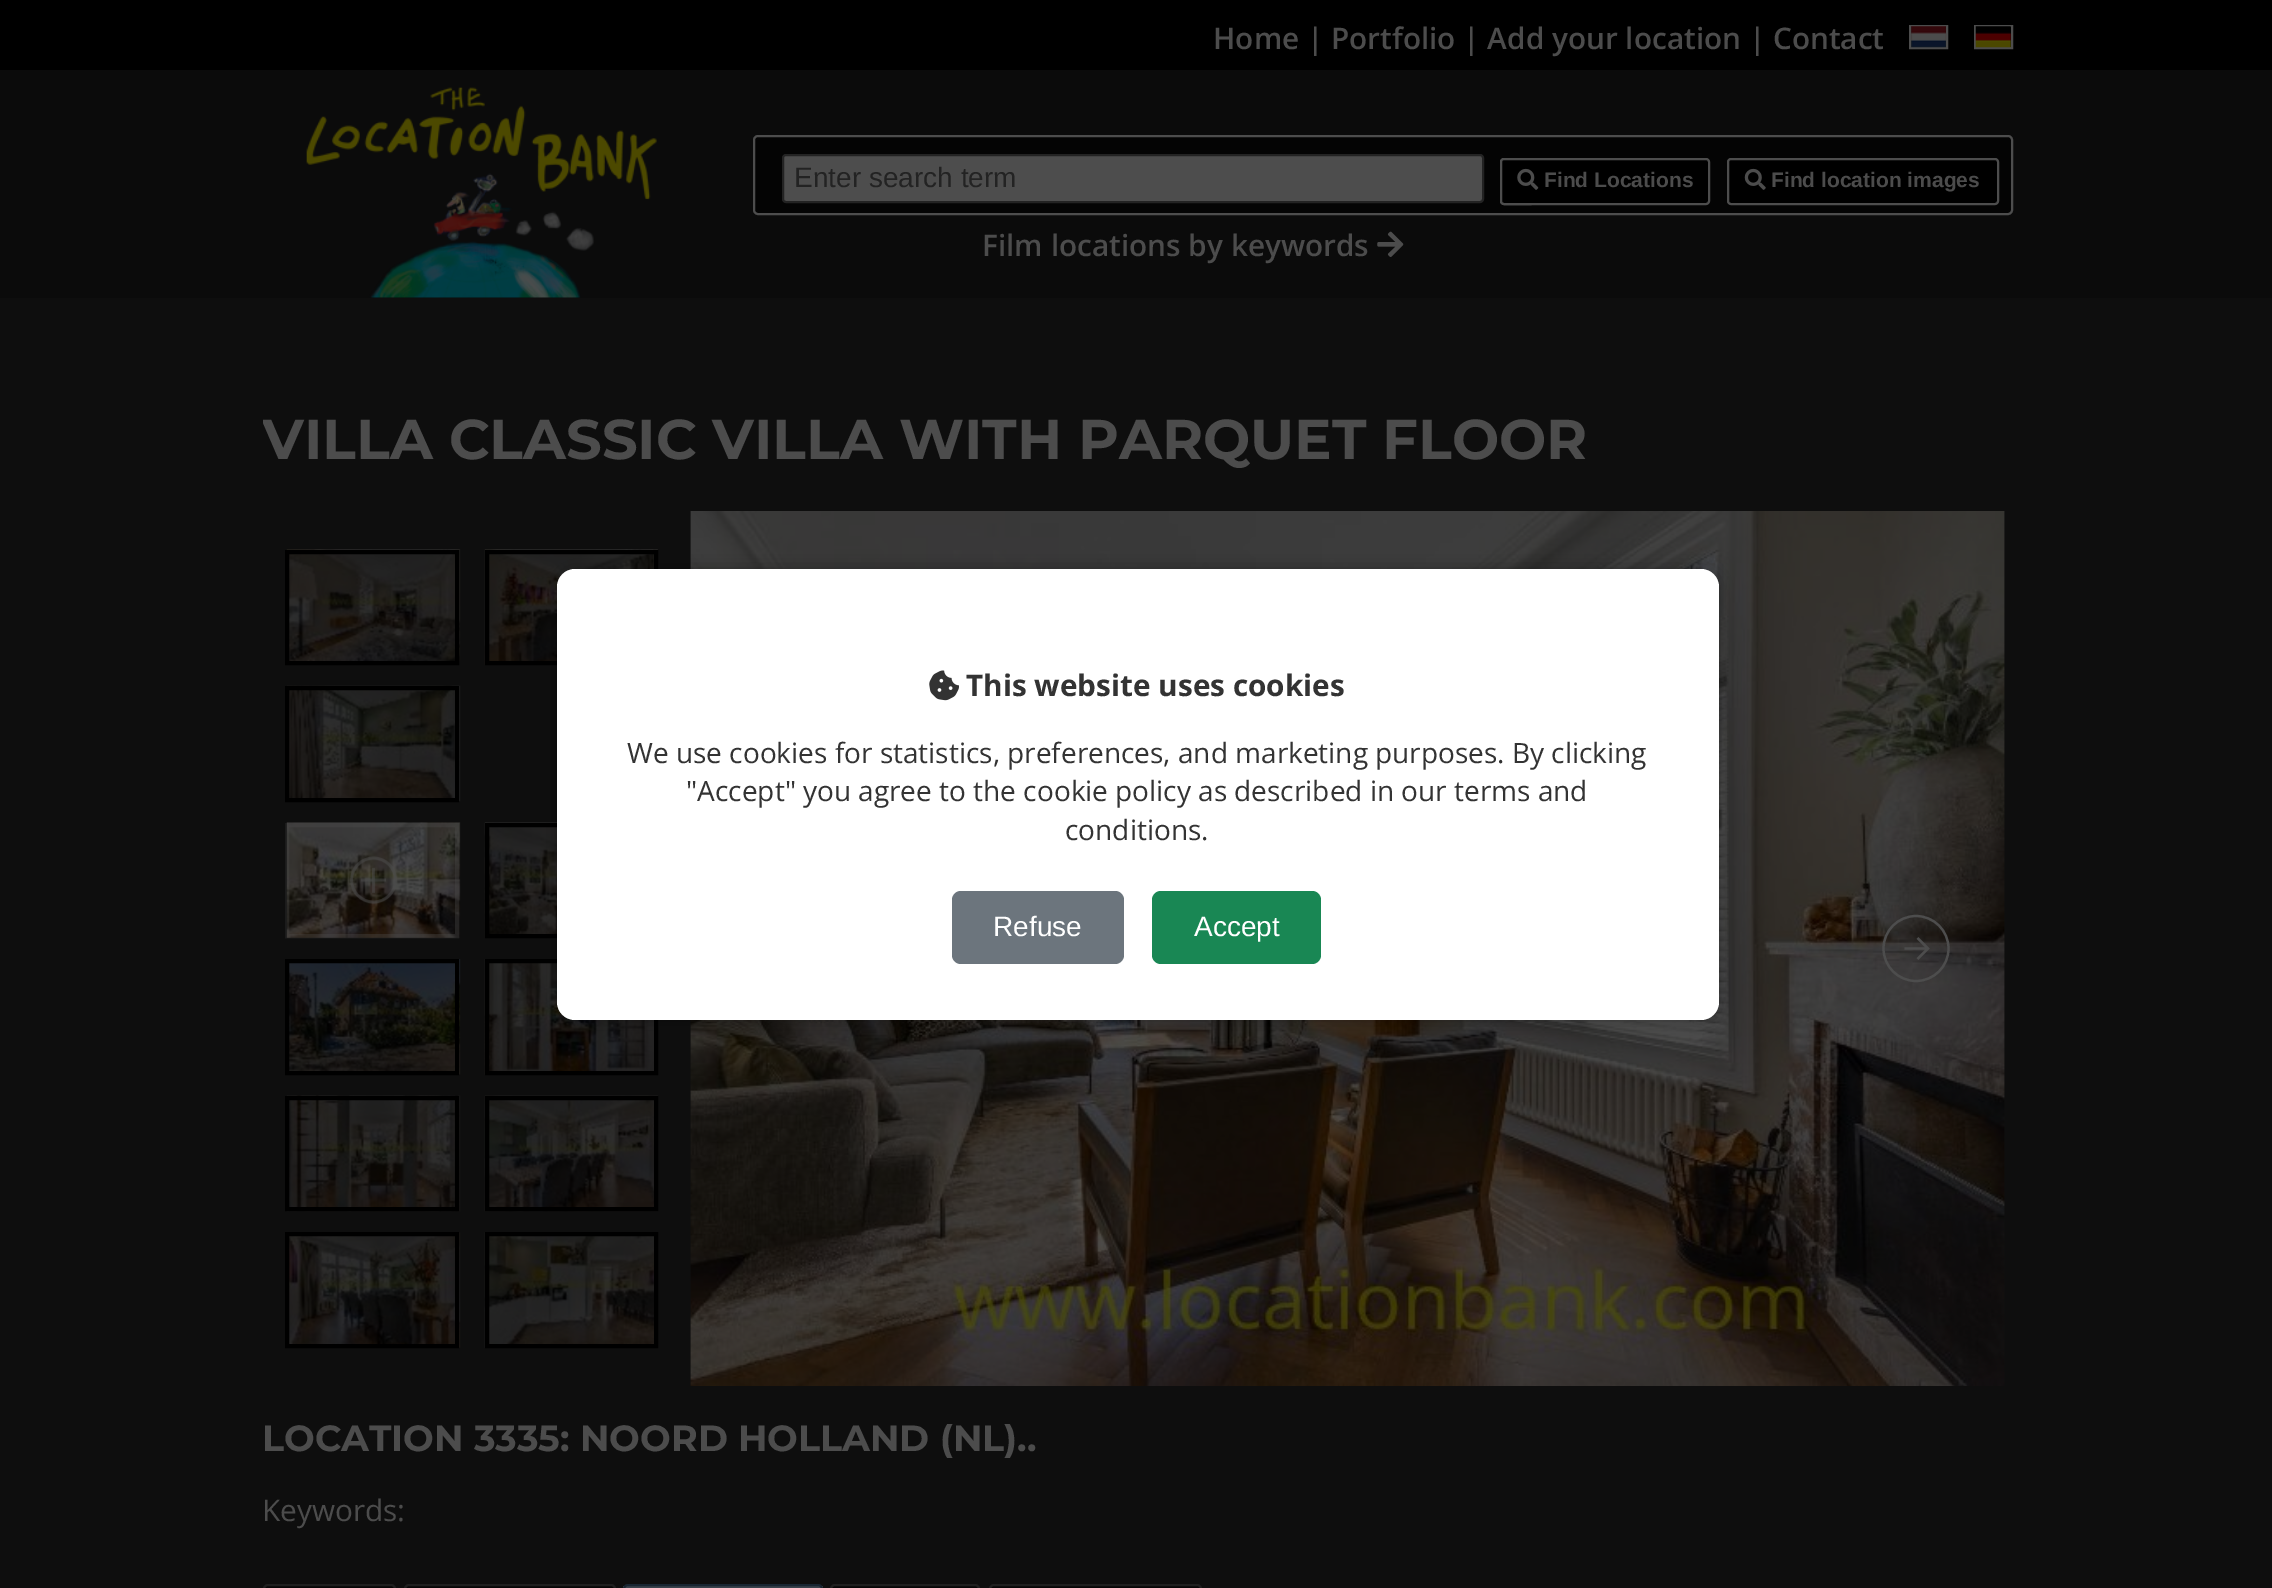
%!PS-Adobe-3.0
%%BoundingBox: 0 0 2272 1588
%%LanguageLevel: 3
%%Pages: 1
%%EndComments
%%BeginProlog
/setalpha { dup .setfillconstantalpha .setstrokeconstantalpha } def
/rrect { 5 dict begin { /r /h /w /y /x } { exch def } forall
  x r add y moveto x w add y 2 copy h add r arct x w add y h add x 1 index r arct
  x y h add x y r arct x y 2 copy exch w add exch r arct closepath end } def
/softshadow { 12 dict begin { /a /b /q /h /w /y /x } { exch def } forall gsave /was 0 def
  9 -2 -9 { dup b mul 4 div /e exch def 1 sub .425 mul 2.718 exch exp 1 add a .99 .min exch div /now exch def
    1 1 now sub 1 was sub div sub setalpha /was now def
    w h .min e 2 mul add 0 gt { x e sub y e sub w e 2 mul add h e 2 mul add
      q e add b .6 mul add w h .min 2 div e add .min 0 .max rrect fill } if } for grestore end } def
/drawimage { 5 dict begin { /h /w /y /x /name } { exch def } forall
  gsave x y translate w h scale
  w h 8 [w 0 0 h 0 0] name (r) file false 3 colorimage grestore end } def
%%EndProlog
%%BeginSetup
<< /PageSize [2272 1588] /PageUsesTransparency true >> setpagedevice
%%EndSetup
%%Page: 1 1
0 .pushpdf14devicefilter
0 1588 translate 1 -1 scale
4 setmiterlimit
0 setgray
0 0 2272 1588 rectfill
0.298 setgray
2 setlinewidth
1910 26 37 22 rectstroke
1975 26 37 22 rectstroke
(images/1.raw) 1911 26 35 22 drawimage
(images/2.raw) 1975 26 36 22 drawimage
0.043 setgray
0 70 2272 228 rectfill
(images/3.raw) 306 87 351 211 drawimage
0.016 setgray
754 136 1258 78 4 rrect gsave fill grestore
0.302 setgray
stroke
783 155 700 47 3 rrect gsave fill grestore
0.137 setgray
stroke
0.302 setgray
1501 159 33 45 3 rrect stroke
0 setgray
1501 159 208 45 3 rrect gsave fill grestore
0.302 setgray
stroke
(images/4.raw) 1517 168 22 22 drawimage
0 setgray
1728 159 270 45 3 rrect gsave fill grestore
0.302 setgray
stroke
(images/5.raw) 1744 168 22 22 drawimage
(images/6.raw) 1377 231 27 26 drawimage
0.055 setgray
0 298 2272 1290 rectfill
0 setgray
289 554 166 107 rectfill
(images/7.raw) 286 549 175 116 drawimage
4 setlinewidth
287 552 170 111 rectstroke
489 554 165 107 rectfill
(images/8.raw) 484 549 174 116 drawimage
487 552 169 111 rectstroke
289 690 166 108 rectfill
(images/9.raw) 287 685 174 117 drawimage
287 688 170 112 rectstroke
285 823 174 115 rectfill
(images/10.raw) 286 822 175 116 drawimage
0.35 setalpha
0.302 setgray
287 825 170 111 rectstroke
2.7 setlinewidth
newpath 373.5 880 22 0 360 arc closepath stroke
newpath 361 880 moveto 386 880 lineto stroke
0.32 setalpha
372 868 3 25 rectfill
1 setalpha
0 setgray
489 827 68 107 rectfill
(images/11.raw) 484 822 73 116 drawimage
4 setlinewidth
487 825 169 111 rectstroke
289 963 166 108 rectfill
(images/12.raw) 289 959 172 116 drawimage
287 961 170 112 rectstroke
489 963 165 108 rectfill
(images/13.raw) 484 959 170 116 drawimage
487 961 169 112 rectstroke
289 1100 166 107 rectfill
(images/14.raw) 286 1095 175 117 drawimage
287 1098 170 111 rectstroke
489 1100 165 107 rectfill
(images/15.raw) 484 1095 174 117 drawimage
487 1098 169 111 rectstroke
289 1236 166 108 rectfill
(images/16.raw) 289 1232 172 116 drawimage
287 1234 170 112 rectstroke
489 1236 165 108 rectfill
(images/17.raw) 484 1232 170 116 drawimage
487 1234 169 112 rectstroke
(images/18.raw) 690 511 1315 875 drawimage
0.302 setgray
2.2 setlinewidth
newpath 1916 948.5 32.5 0 360 arc closepath stroke
newpath 1917.5 938 moveto 1928 948.5 lineto 1917.5 959 lineto 1904.5 948.5 moveto 1928 948.5 lineto stroke
0.024 setgray
264 1585 131 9 4 rrect gsave fill grestore
0.122 setgray
2 setlinewidth
stroke
0.024 setgray
405 1585 210 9 4 rrect gsave fill grestore
0.122 setgray
stroke
gsave
623 1584 200 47 5 rrect clip newpath
gsave newpath 623 1586 moveto 823 1586 lineto 823 1588 lineto 623 1588 lineto closepath clip newpath
<< /ShadingType 2 /ColorSpace /DeviceRGB /Coords [625 1586 625 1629] /Extend [true true] /Function << /FunctionType 3 /Domain [0 1] /Functions [<< /FunctionType 2 /Domain [0 1] /C0 [0.224 0.259 0.294] /C1 [0.224 0.259 0.294] /N 1 >> << /FunctionType 2 /Domain [0 1] /C0 [0.224 0.259 0.294] /C1 [0.18 0.224 0.263] /N 1 >>] /Bounds [0.05] /Encode [0 1 0 1] >> >> shfill grestore
grestore
0.094 0.145 0.192 setrgbcolor
624 1585 198 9 4 rrect stroke
0.024 setgray
831 1585 148 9 4 rrect gsave fill grestore
0.122 setgray
stroke
0.024 setgray
990 1585 211 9 4 rrect gsave fill grestore
0.122 setgray
stroke
0 setgray
557 569 1162 451 18 9 0.3 softshadow
1 setgray
557 569 1162 451 18 rrect fill
(images/19.raw) 929 670 30 31 drawimage
0.424 0.459 0.49 setrgbcolor
952 891 172 73 9 rrect fill
0.098 0.529 0.329 setrgbcolor
1152 891 169 73 9 rrect fill
/OpenSans-SemiBold [29.75 0 0 -29.75 0 0] selectfont
0.298 setgray
1213 49 moveto (Home | Portfolio | Add your location | Contact) show
/LiberationSans-Regular [28 0 0 -28 0 0] selectfont
0.137 setgray
794 187 moveto (Enter search term) show
/LiberationSans-Bold [21 0 0 -21 0 0] selectfont
0.298 setgray
1544 187 moveto (Find Locations) show
1771 187 moveto (Find location images) show
/OpenSans-SemiBold [29.75 0 0 -29.75 0 0] selectfont
982 256 moveto (Film locations by keywords) show
gsave
263 315 1750 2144 rectclip
/Montserrat-Bold [56 0 0 -56 0 0] selectfont
262 459 moveto (VILLA CLASSIC VILLA WITH PARQUET FLOOR) show
grestore
/Montserrat-Bold [36.4 0 0 -36.4 0 0] selectfont
262 1451 moveto (LOCATION 3335: NOORD HOLLAND \(NL\)..) show
/OpenSans-Regular [29.75 0 0 -29.75 0 0] selectfont
262 1521 moveto (Keywords:) show
/OpenSans-Bold [29.75 0 0 -29.75 0 0] selectfont
0.2 setgray
966 696 moveto (This website uses cookies) show
/OpenSans-Regular [28 0 0 -28 0 0] selectfont
627 763 moveto (We use cookies for statistics, preferences, and marketing purposes. By clicking) show
686 801 moveto ("Accept" you agree to the cookie policy as described in our terms and) show
1065 840 moveto (conditions.) show
/LiberationSans-Regular [28 0 0 -28 0 0] selectfont
1 setgray
993 936 moveto (Refuse) show
1194 936 moveto (Accept) show
.poppdf14devicefilter showpage
%%EOF
